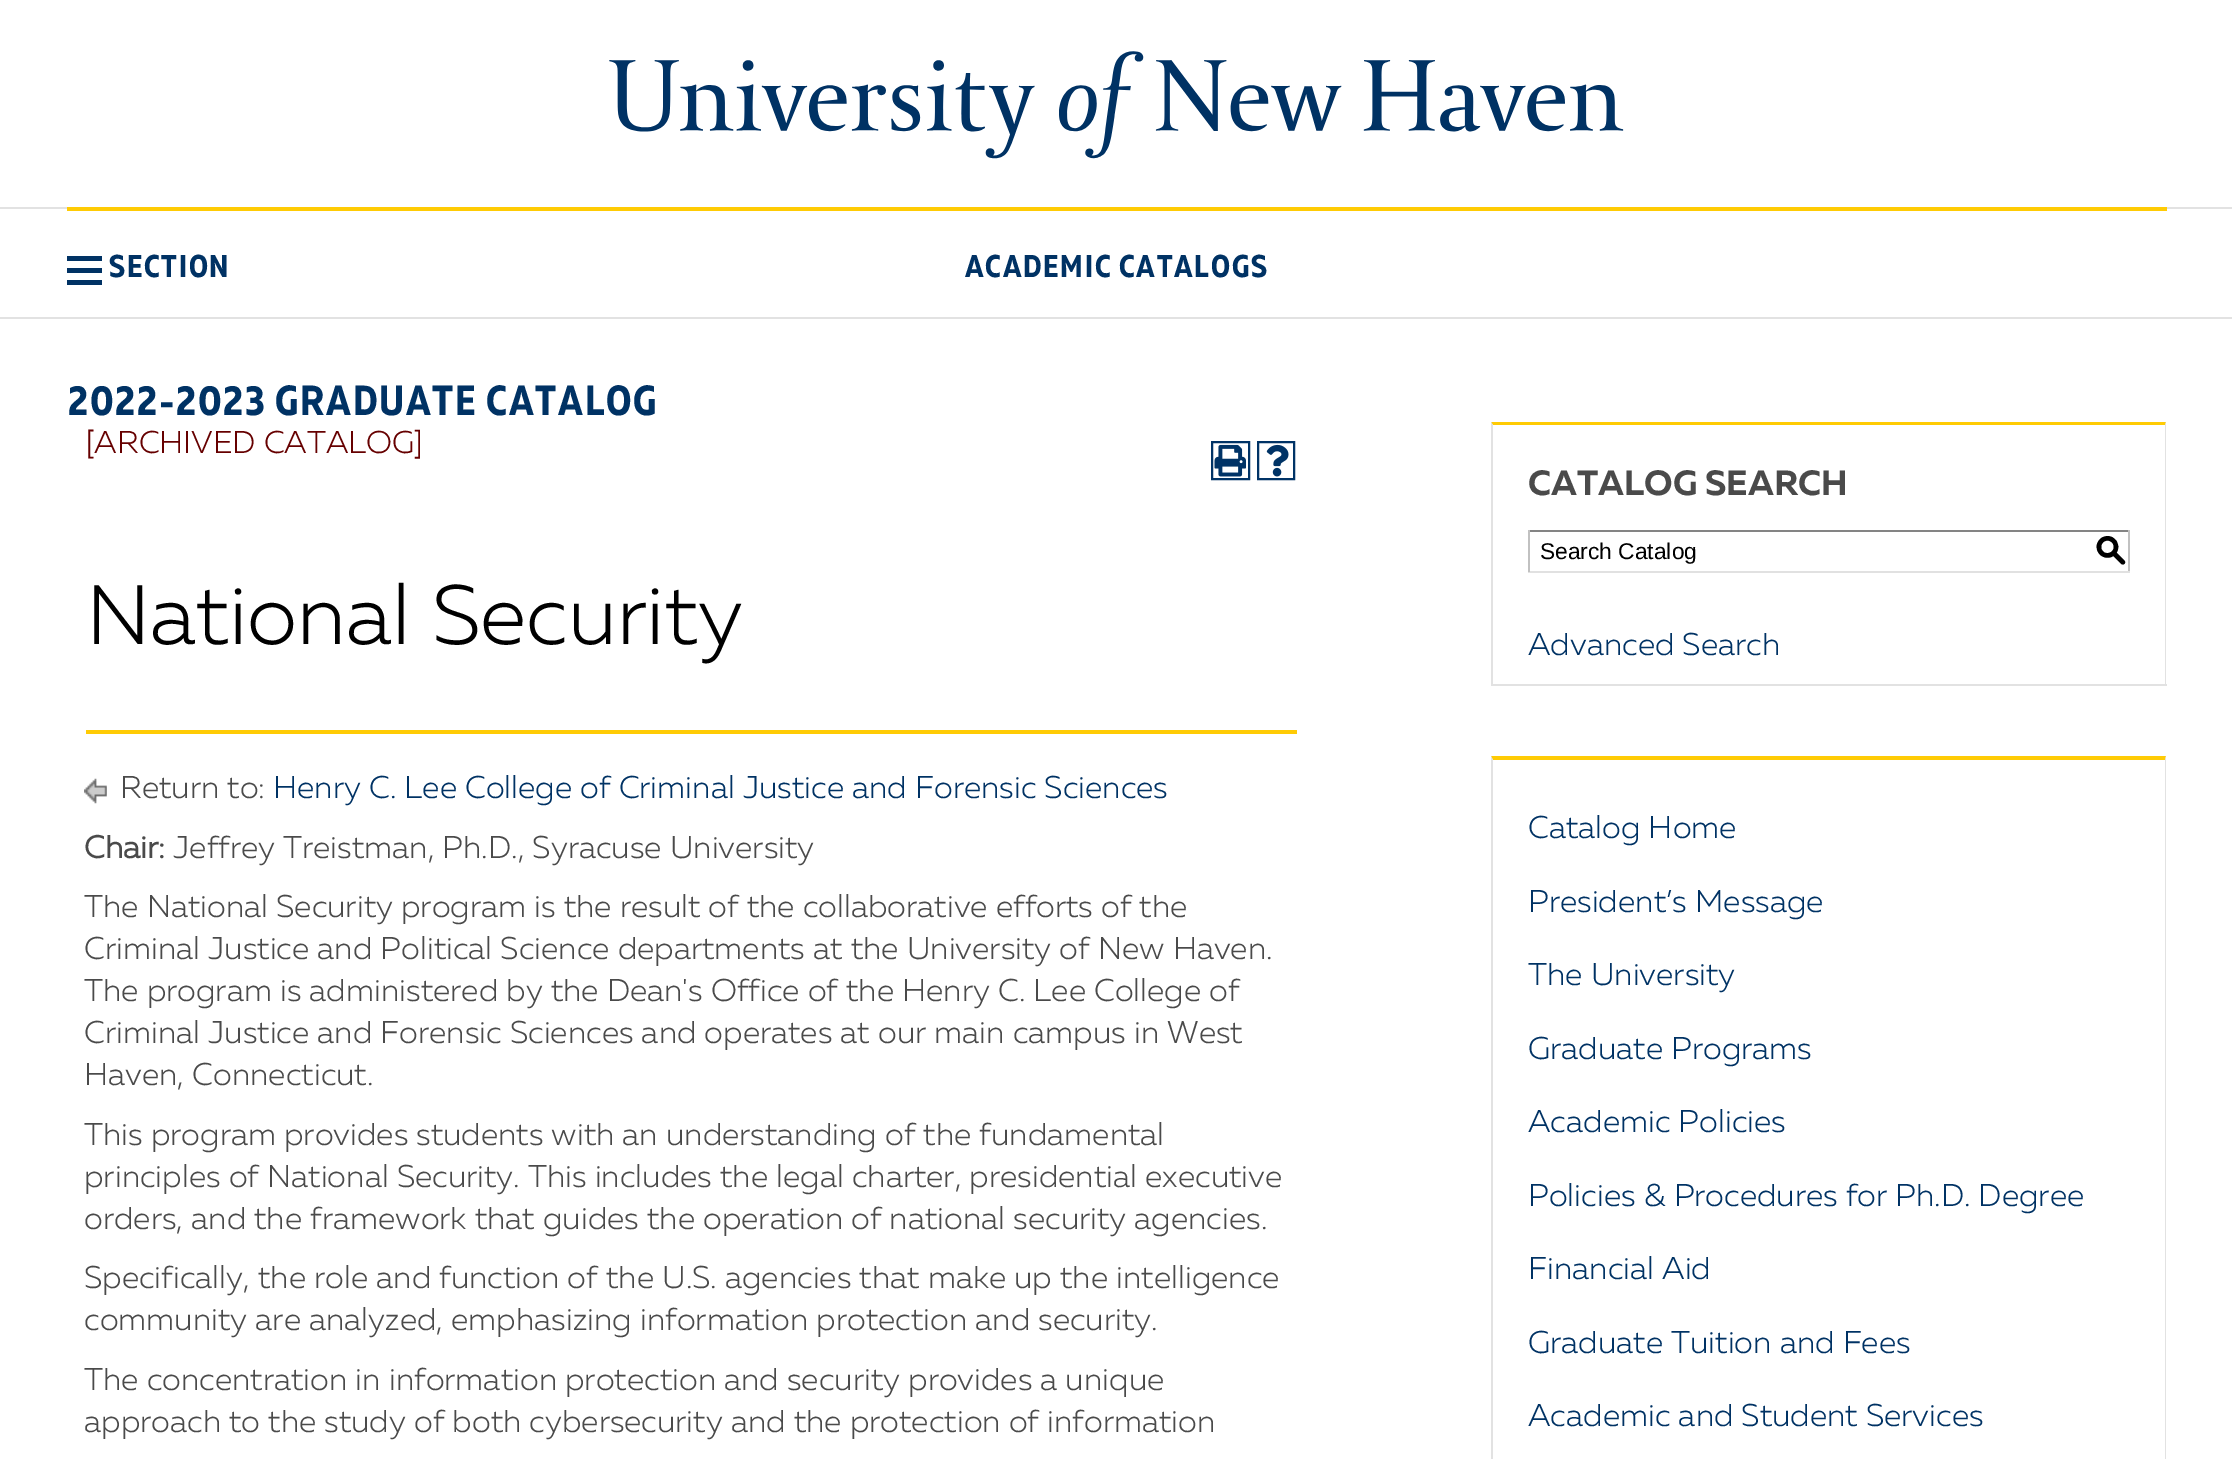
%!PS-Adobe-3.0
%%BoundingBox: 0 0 2232 1459
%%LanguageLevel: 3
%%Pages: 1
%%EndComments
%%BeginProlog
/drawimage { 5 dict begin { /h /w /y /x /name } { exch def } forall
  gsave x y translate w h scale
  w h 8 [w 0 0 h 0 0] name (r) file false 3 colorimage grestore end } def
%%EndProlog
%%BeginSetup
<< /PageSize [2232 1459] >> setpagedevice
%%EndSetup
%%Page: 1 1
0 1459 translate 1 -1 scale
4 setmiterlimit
1 setgray
0 0 2232 1459 rectfill
0.886 setgray
0 207 2232 2 rectfill
(images/1.raw) 609 51 1015 108 drawimage
0 317 2232 2 rectfill
1 0.796 0.016 setrgbcolor
67 207 2100 4 rectfill
0 0.196 0.392 setrgbcolor
67 268 35 5 rectfill
67 256 35 5 rectfill
67 280 35 5 rectfill
0 0.2 0.4 setrgbcolor
2 setlinewidth
1212 442 37 37 rectstroke
(images/2.raw) 1214 444 32 33 drawimage
1258 442 36 37 rectstroke
(images/3.raw) 1266 444 23 33 drawimage
1 0.796 0.016 setrgbcolor
86 730 1211 4 rectfill
(images/4.raw) 84 778 23 26 drawimage
newpath 1491 422 moveto 2166 422 lineto 2165 425 lineto 1493 425 lineto closepath fill
0.886 setgray
newpath 2166 422 moveto 2166 686 lineto 2165 684 lineto 2165 425 lineto closepath fill
1491 684 676 2 rectfill
newpath 1491 686 moveto 1491 422 lineto 1493 425 lineto 1493 684 lineto closepath fill
0.518 setgray
1528 530 602 2 rectfill
0.757 setgray
2128 530 2 42 rectfill
0.882 setgray
1528 571 602 2 rectfill
0.757 setgray
1528 530 2 42 rectfill
1 0.796 0.016 setrgbcolor
newpath 1491 756 moveto 2166 756 lineto 2165 760 lineto 1493 760 lineto closepath fill
0.886 setgray
newpath 2166 756 moveto 2166 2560 lineto 2165 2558 lineto 2165 760 lineto closepath fill
newpath 1491 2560 moveto 1491 756 lineto 1493 760 lineto 1493 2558 lineto closepath fill
/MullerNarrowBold-Regular [31.5 0 0 -31.5 0 0] selectfont
0 0.196 0.392 setrgbcolor
109 277 moveto 1.75 0 (SECTION) ashow
965 277 moveto 1.75 0 (ACADEMIC CATALOGS) ashow
/MullerNarrowBold-Regular [42 0 0 -42 0 0] selectfont
68 415 moveto 1.75 0 (2022-2023 GRADUATE CATALOG) ashow
/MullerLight-Regular [31.5 0 0 -31.5 0 0] selectfont
0.4 0 0 setrgbcolor
86 453 moveto ([ARCHIVED CATALOG]) show
/MullerLight-Regular [84 0 0 -84 0 0] selectfont
0 setgray
86 644 moveto (National Security) show
/MullerLight-Regular [31.5 0 0 -31.5 0 0] selectfont
0.29 setgray
120 798 moveto (Return to:) show
0 0.196 0.392 setrgbcolor
273 798 moveto (Henry C. Lee College of Criminal Justice and Forensic Sciences) show
/MullerLight-Bold [31.5 0 0 -31.5 0 0] selectfont
0.29 setgray
84 858 moveto (Chair:) show
/MullerLight-Regular [31.5 0 0 -31.5 0 0] selectfont
173 858 moveto (Jeffrey Treistman, Ph.D., Syracuse University) show
84 917 moveto (The National Security program is the result of the collaborative efforts of the) show
84 959 moveto (Criminal Justice and Political Science departments at the University of New Haven.) show
84 1001 moveto (The program is administered by the Dean's Office of the Henry C. Lee College of) show
84 1043 moveto (Criminal Justice and Forensic Sciences and operates at our main campus in West) show
84 1085 moveto (Haven, Connecticut.) show
84 1145 moveto (This program provides students with an understanding of the fundamental) show
84 1187 moveto (principles of National Security. This includes the legal charter, presidential executive) show
84 1229 moveto (orders, and the framework that guides the operation of national security agencies.) show
84 1288 moveto (Specifically, the role and function of the U.S. agencies that make up the intelligence) show
84 1330 moveto (community are analyzed, emphasizing information protection and security.) show
84 1390 moveto (The concentration in information protection and security provides a unique) show
84 1432 moveto (approach to the study of both cybersecurity and the protection of information) show
/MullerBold-Regular [35 0 0 -35 0 0] selectfont
1528 495 moveto (CATALOG SEARCH) show
/LiberationSans-Regular [22.75 0 0 -22.75 0 0] selectfont
0 setgray
1540 559 moveto (Search Catalog) show
/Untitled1-Medium [31.5 0 0 -31.5 0 0] selectfont
2095 560 moveto (S) show
/MullerLight-Regular [31.5 0 0 -31.5 0 0] selectfont
0 0.196 0.392 setrgbcolor
1528 655 moveto (Advanced Search) show
1528 838 moveto (Catalog Home) show
1528 912 moveto (President’s Message) show
1528 985 moveto (The University) show
1528 1059 moveto (Graduate Programs) show
1528 1132 moveto (Academic Policies) show
1528 1206 moveto (Policies & Procedures for Ph.D. Degree) show
1528 1279 moveto (Financial Aid) show
1528 1353 moveto (Graduate Tuition and Fees) show
1528 1426 moveto (Academic and Student Services) show
showpage
%%EOF
